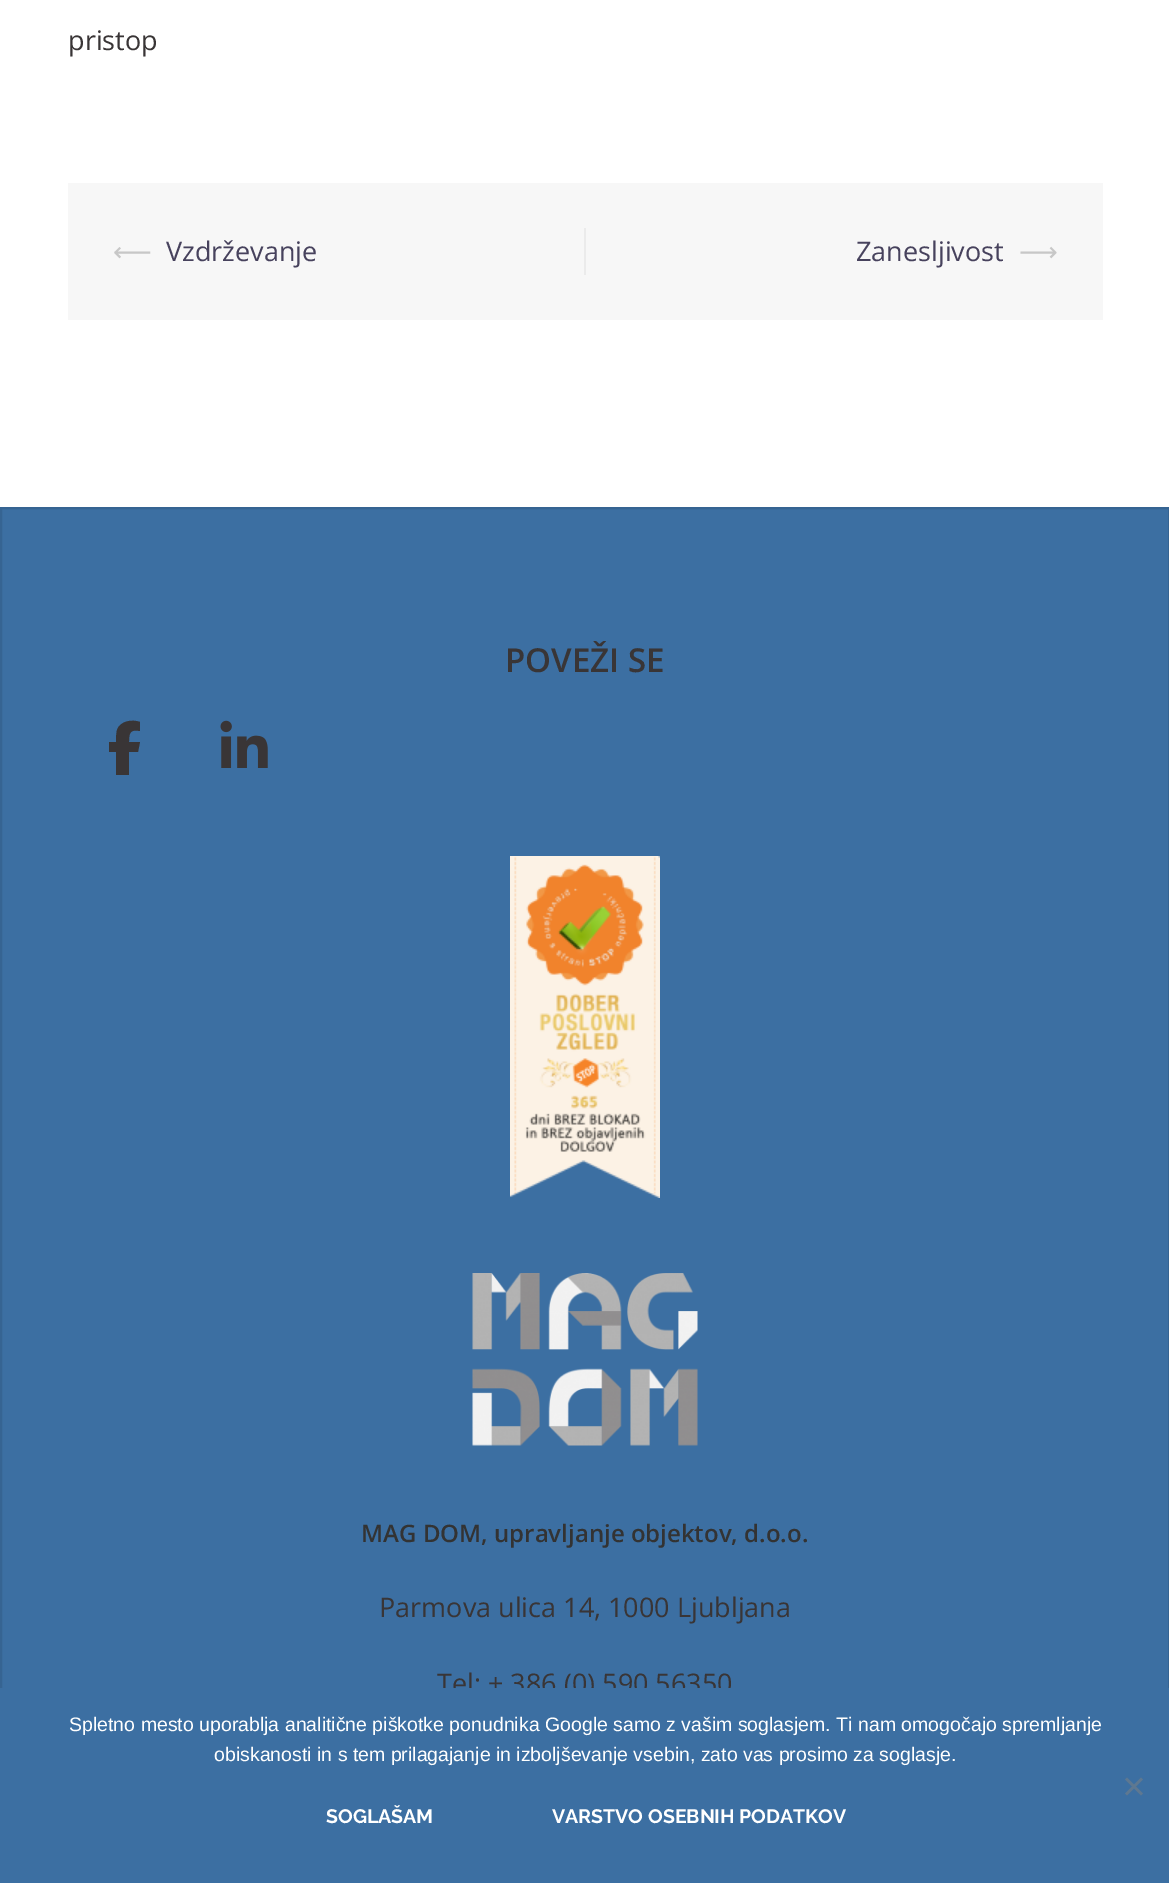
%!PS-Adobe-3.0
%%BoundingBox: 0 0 1169 1883
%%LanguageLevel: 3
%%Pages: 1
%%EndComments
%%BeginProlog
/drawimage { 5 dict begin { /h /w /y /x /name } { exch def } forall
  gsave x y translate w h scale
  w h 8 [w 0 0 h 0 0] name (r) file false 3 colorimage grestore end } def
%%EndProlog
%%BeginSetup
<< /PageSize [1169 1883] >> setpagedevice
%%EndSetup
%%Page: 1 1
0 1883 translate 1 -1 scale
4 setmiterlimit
1 setgray
0 0 1169 1883 rectfill
0.969 setgray
68 183 1035 137 rectfill
0.922 setgray
584 228 2 47 rectfill
0.235 0.435 0.635 setrgbcolor
2 509 1166 1179 rectfill
0.212 0.392 0.573 setrgbcolor
2 setlinewidth
1 508 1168 1350 rectstroke
0.224 0.208 0.212 setrgbcolor
newpath 116 752 moveto 116 775 lineto 116 752 lineto 116 775 lineto 129 775 lineto 129 752 lineto 138 752 lineto 140 742 lineto 129 742 lineto 129 733 130 729 140 731 curveto 140 722 lineto 132 719 120 721 117 730 curveto 116 734 116 738 116 742 curveto 109 742 lineto 109 752 lineto closepath fill
(images/1.raw) 220 720 48 48 drawimage
(images/2.raw) 510 856 150 342 drawimage
(images/3.raw) 472 1273 226 173 drawimage
/OpenSans-Regular [27 0 0 -27 0 0] selectfont
68 50 moveto (pristop) show
/DejaVuSans-Regular [27 0 0 -27 0 0] selectfont
0.78 setgray
113 261 moveto (⟵) show
/OpenSans-Regular [27 0 0 -27 0 0] selectfont
0.278 0.259 0.365 setrgbcolor
166 261 moveto (Vzdrževanje) show
856 261 moveto (Zanesljivost) show
/DejaVuSans-Regular [27 0 0 -27 0 0] selectfont
0.78 setgray
1019 261 moveto (⟶) show
/OpenSans-SemiBold [33 0 0 -33 0 0] selectfont
0.224 0.208 0.212 setrgbcolor
505 672 moveto (POVEŽI SE) show
/OpenSans-SemiBold [24 0 0 -24 0 0] selectfont
0.2 setgray
361 1542 moveto (MAG DOM, upravljanje objektov, d.o.o.) show
/OpenSans-Regular [27 0 0 -27 0 0] selectfont
0.224 0.208 0.212 setrgbcolor
379 1617 moveto (Parmova ulica 14, 1000 Ljubljana) show
437 1693 moveto (Tel: + 386 \(0\) 590 56350) show
0.235 0.435 0.635 setrgbcolor
0 1688 1169 195 rectfill
/LiberationSans-Regular [19.5 0 0 -19.5 0 0] selectfont
1 setgray
69 1731 moveto (Spletno mesto uporablja analitične piškotke ponudnika Google samo z vašim soglasjem. Ti nam omogočajo spremljanje) show
214 1761 moveto (obiskanosti in s tem prilagajanje in izboljševanje vsebin, zato vas prosimo za soglasje.) show
0.369 0.471 0.569 setrgbcolor
newpath 1141 1777.5 moveto 1143 1779.5 lineto 1127 1795.5 lineto 1125 1793.5 lineto closepath fill
newpath 1125 1779.5 moveto 1127 1777.5 lineto 1143 1793.5 lineto 1141 1795.5 lineto closepath fill
/Raleway-Bold [19.5 0 0 -19.5 0 0] selectfont
1 setgray
326 1823 moveto (SOGLAŠAM) show
552 1823 moveto (VARSTVO OSEBNIH PODATKOV) show
showpage
%%EOF
